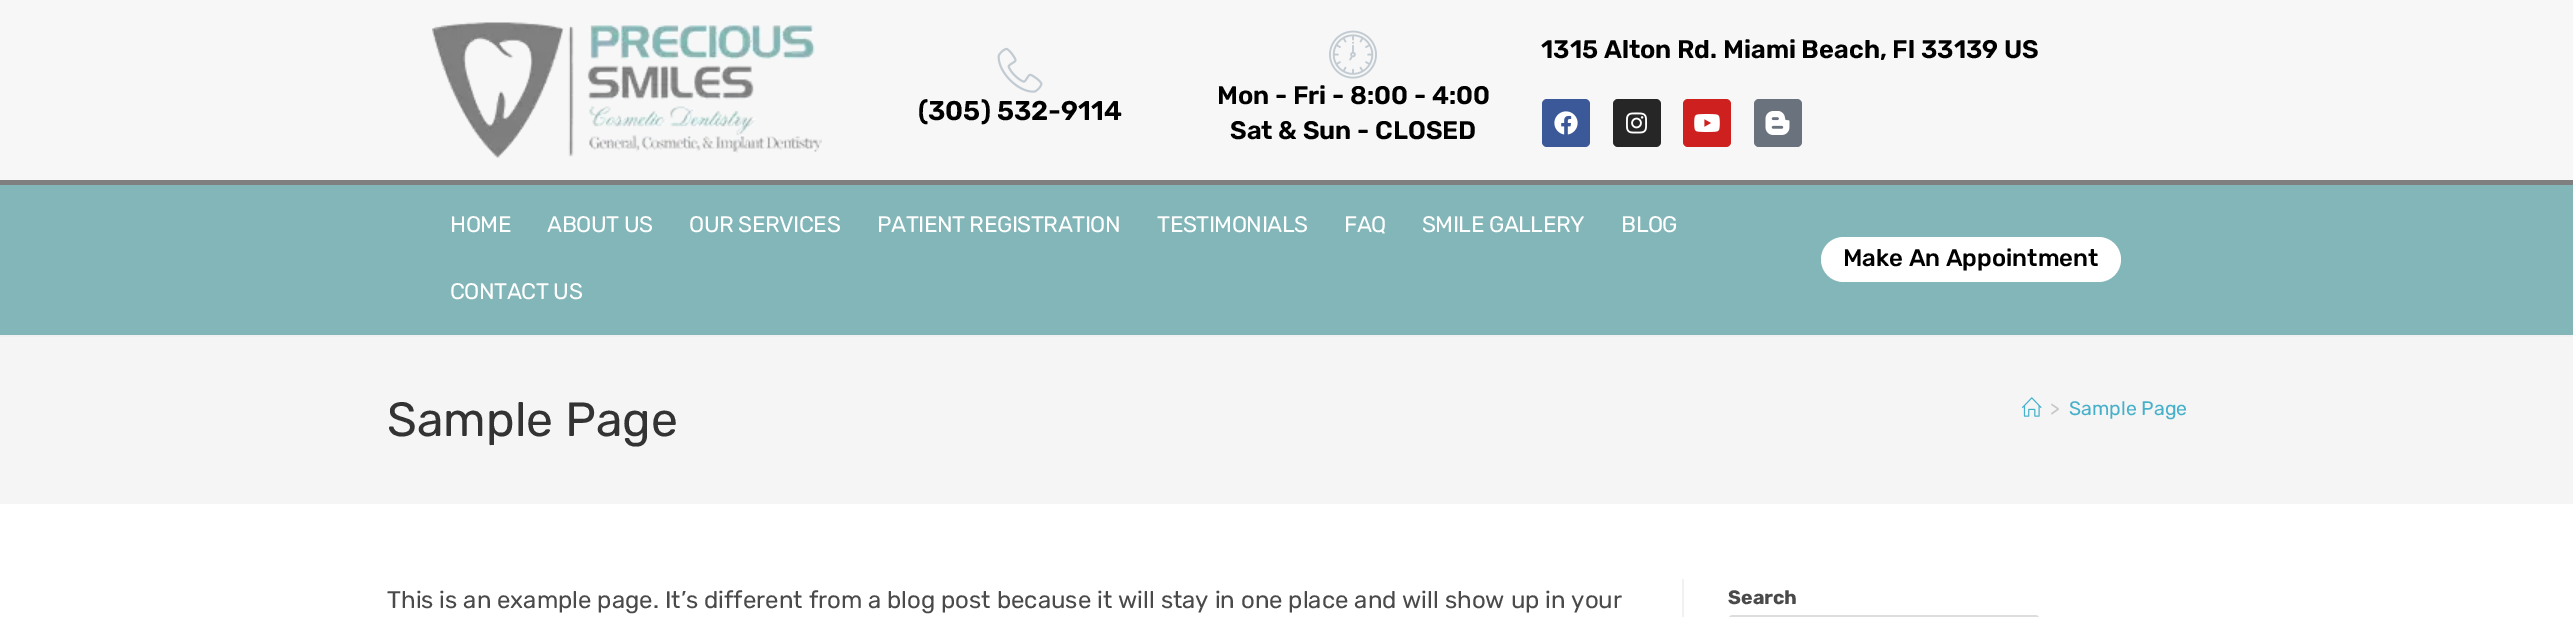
%!PS-Adobe-3.0
%%BoundingBox: 0 0 2573 617
%%LanguageLevel: 3
%%Pages: 1
%%EndComments
%%BeginProlog
/rrect { 5 dict begin { /r /h /w /y /x } { exch def } forall
  x r add y moveto x w add y 2 copy h add r arct x w add y h add x 1 index r arct
  x y h add x y r arct x y 2 copy exch w add exch r arct closepath end } def
/drawimage { 5 dict begin { /h /w /y /x /name } { exch def } forall
  gsave x y translate w h scale
  w h 8 [w 0 0 h 0 0] name (r) file false 3 colorimage grestore end } def
%%EndProlog
%%BeginSetup
<< /PageSize [2573 617] >> setpagedevice
%%EndSetup
%%Page: 1 1
0 617 translate 1 -1 scale
4 setmiterlimit
1 setgray
0 0 2573 617 rectfill
0.945 setgray
0 335 2573 2 rectfill
0.969 setgray
0 0 2573 180 rectfill
(images/1.raw) 432 22 390 136 drawimage
0.231 0.349 0.596 setrgbcolor
1542 99 48 48 5 rrect fill
(images/2.raw) 1554 111 24 24 drawimage
0.149 setgray
1613 99 48 48 5 rrect fill
(images/3.raw) 1626 112 22 22 drawimage
0.804 0.125 0.122 setrgbcolor
1683 99 48 48 5 rrect fill
(images/4.raw) 1694 114 26 18 drawimage
0.412 0.447 0.49 setrgbcolor
1754 99 48 48 5 rrect fill
(images/5.raw) 1765 111 25 24 drawimage
(images/6.raw) 997 47 46 46 drawimage
(images/7.raw) 1329 30 48 49 drawimage
0.514 0.714 0.722 setrgbcolor
0 185 2573 150 rectfill
0.498 setgray
0 180 2573 5 rectfill
1 setgray
1821 237 300 45 22.5 rrect fill
0.961 setgray
0 337 2573 167 rectfill
(images/8.raw) 2022 397 20 20 drawimage
0.945 setgray
1682 579 2 38 rectfill
0.867 setgray
2 setlinewidth
1729 616 310 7 4 rrect stroke
/Rubik-SemiBold [25.5 0 0 -25.5 0 0] selectfont
0 setgray
1541 58 moveto (1315 Alton Rd. Miami Beach, Fl 33139 US) show
/Rubik-SemiBold [27 0 0 -27 0 0] selectfont
918 120 moveto (\(305\) 532-9114) show
/Rubik-SemiBold [25.5 0 0 -25.5 0 0] selectfont
1217 104 moveto (Mon - Fri - 8:00 - 4:00) show
1230 139 moveto (Sat & Sun - CLOSED) show
/Rubik-Regular [22.5 0 0 -22.5 0 0] selectfont
1 setgray
450 232 moveto -0.5 0 (HOME) ashow
547 232 moveto -0.5 0 (ABOUT US) ashow
689 232 moveto -0.5 0 (OUR SERVICES) ashow
877 232 moveto -0.5 0 (PATIENT REGISTRATION) ashow
1157 232 moveto -0.5 0 (TESTIMONIALS) ashow
1344 232 moveto -0.5 0 (FAQ) ashow
1422 232 moveto -0.5 0 (SMILE GALLERY) ashow
1621 232 moveto -0.5 0 (BLOG) ashow
450 299 moveto -0.5 0 (CONTACT US) ashow
/Rubik-Medium [24 0 0 -24 0 0] selectfont
0 setgray
1843 266 moveto (Make An Appointment) show
/Rubik-Regular [48 0 0 -48 0 0] selectfont
0.2 setgray
387 436 moveto (Sample Page) show
/Rubik-Regular [19.5 0 0 -19.5 0 0] selectfont
0.776 setgray
2050 415 moveto (>) show
0.275 0.69 0.792 setrgbcolor
2069 415 moveto (Sample Page) show
/Rubik-Regular [24 0 0 -24 0 0] selectfont
0.29 setgray
387 608 moveto (This is an example page. It’s different from a blog post because it will stay in one place and will show up in your) show
/Rubik-Bold [19.5 0 0 -19.5 0 0] selectfont
1728 604 moveto (Search) show
showpage
%%EOF
